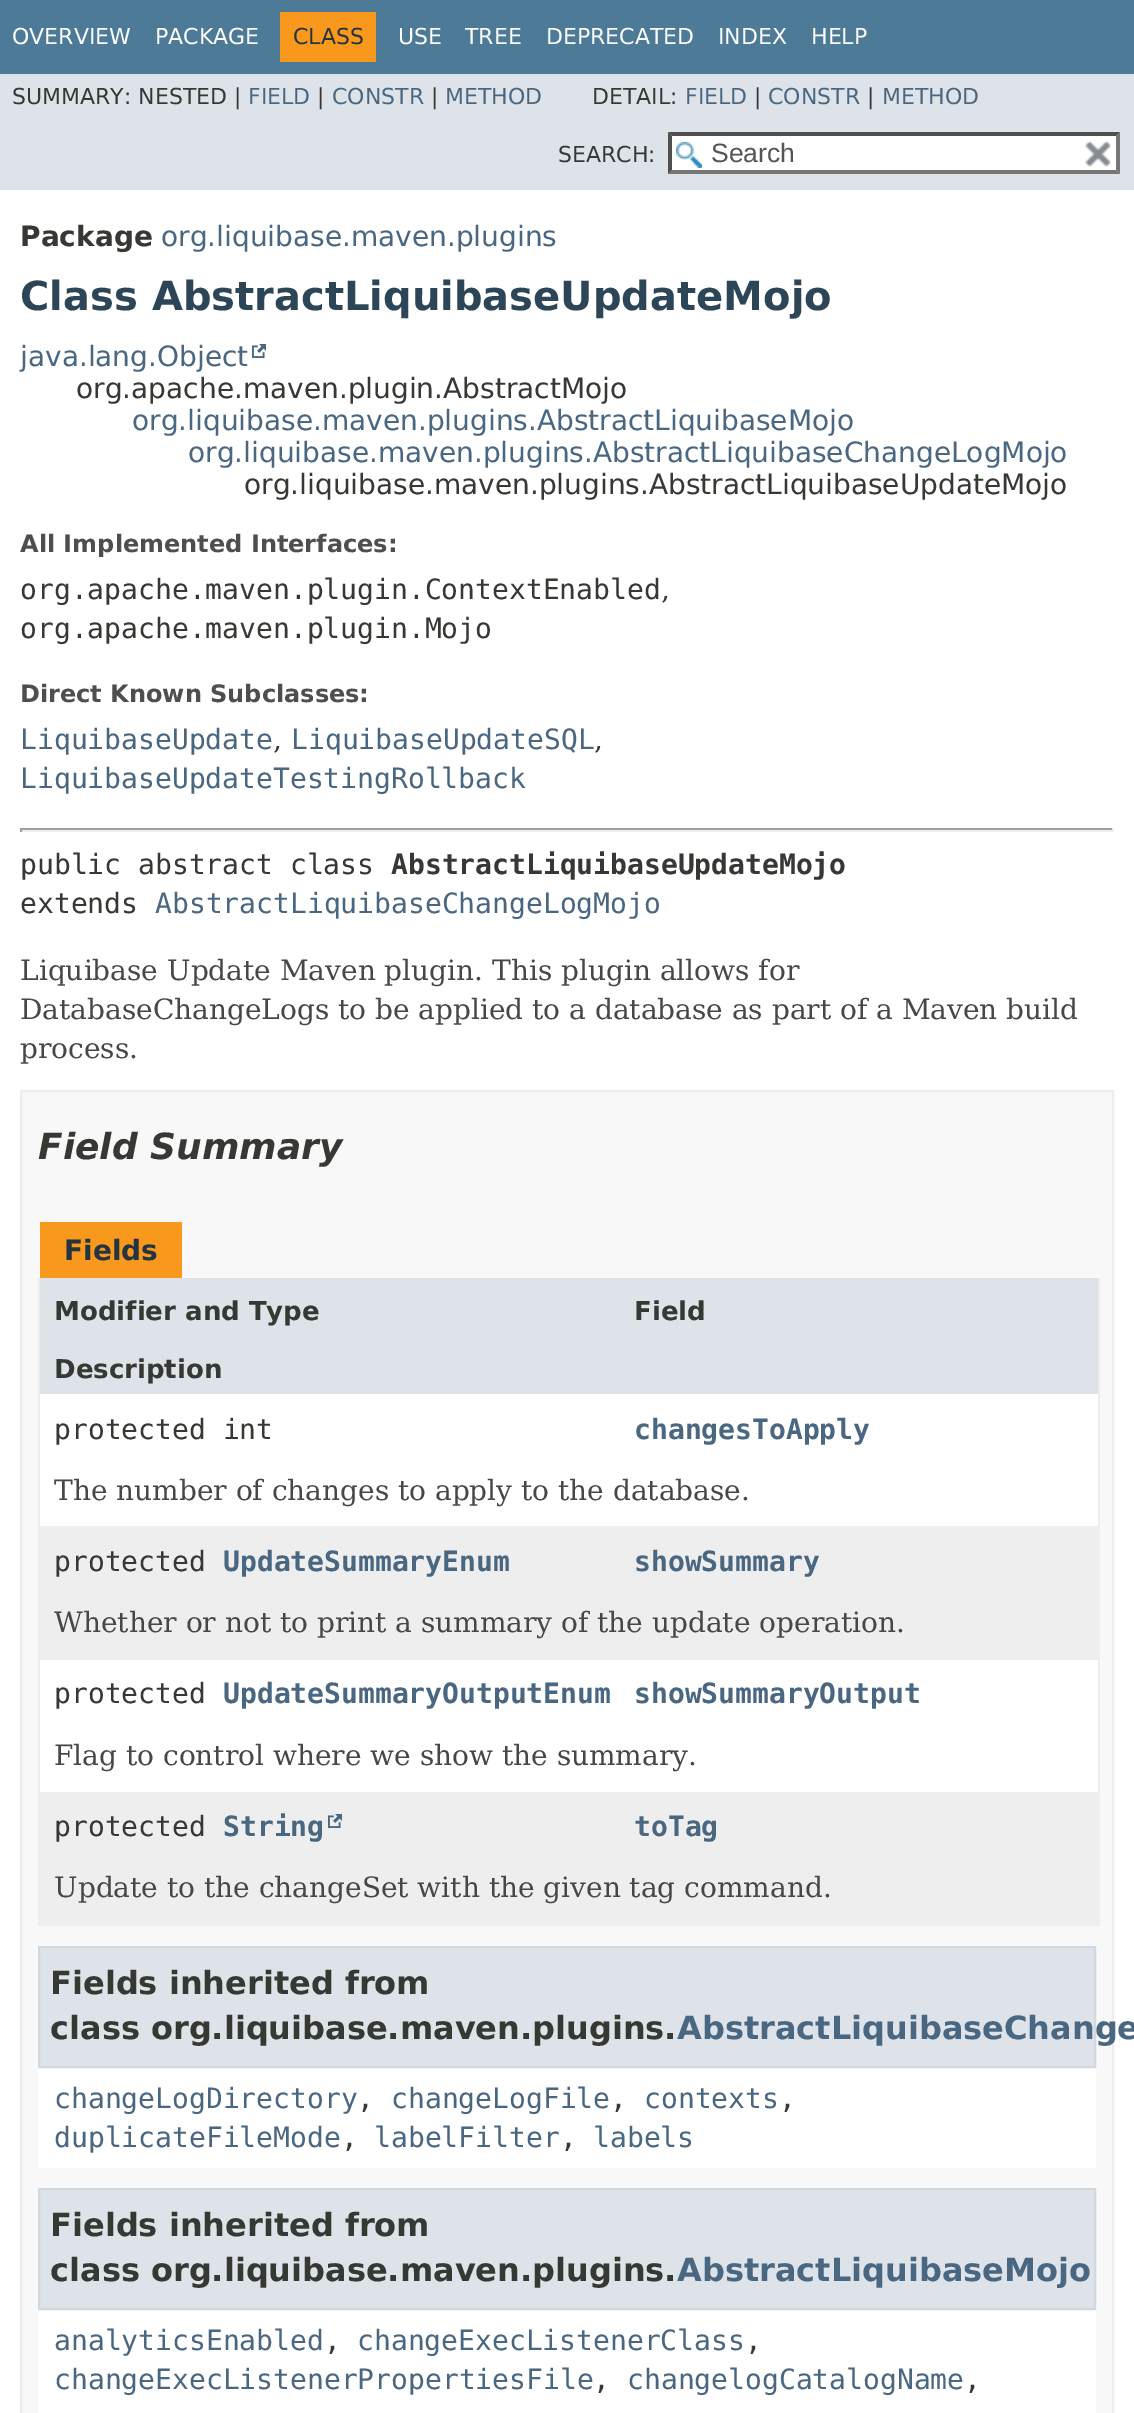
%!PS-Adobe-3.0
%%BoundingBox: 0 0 1134 2413
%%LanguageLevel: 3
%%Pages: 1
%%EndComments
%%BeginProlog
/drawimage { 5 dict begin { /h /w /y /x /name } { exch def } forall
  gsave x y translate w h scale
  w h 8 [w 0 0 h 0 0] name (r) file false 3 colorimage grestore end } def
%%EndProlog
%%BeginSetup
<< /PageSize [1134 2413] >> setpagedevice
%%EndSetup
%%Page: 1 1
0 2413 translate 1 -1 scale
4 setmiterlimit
1 setgray
0 0 1134 2413 rectfill
0.302 0.478 0.592 setrgbcolor
0 0 1134 74 rectfill
0.973 0.596 0.114 setrgbcolor
280 12 96 50 rectfill
0.871 0.89 0.914 setrgbcolor
0 74 1134 116 rectfill
1 setgray
668 132 452 42 rectfill
(images/1.raw) 676 142 26 26 drawimage
0.31 setgray
newpath 668 132 moveto 1120 132 lineto 1116 136 lineto 672 136 lineto closepath fill
0.463 setgray
newpath 1120 132 moveto 1120 174 lineto 1116 170 lineto 1116 136 lineto closepath fill
newpath 1120 174 moveto 668 174 lineto 672 170 lineto 1116 170 lineto closepath fill
0.31 setgray
newpath 668 174 moveto 668 132 lineto 672 136 lineto 672 170 lineto closepath fill
(images/2.raw) 1084 141 27 26 drawimage
(images/3.raw) 252 344 14 14 drawimage
0.624 setgray
20 828 1094 2 rectfill
0.933 setgray
1112 828 2 4 rectfill
20 830 1094 2 rectfill
0.624 setgray
20 828 2 4 rectfill
0.973 setgray
newpath 21 1091 moveto 1113 1091 lineto 1113 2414 lineto 21 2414 lineto closepath gsave fill grestore
0.929 setgray
2 setlinewidth
stroke
0.973 0.596 0.114 setrgbcolor
40 1222 142 56 rectfill
0.933 setgray
1098 1278 2 648 rectfill
38 1924 1062 2 rectfill
38 1278 2 648 rectfill
0.871 0.89 0.914 setrgbcolor
40 1278 1058 58 rectfill
40 1336 1058 58 rectfill
1 setgray
40 1394 1058 62 rectfill
40 1456 1058 70 rectfill
0.933 0.933 0.937 setrgbcolor
40 1526 1058 62 rectfill
40 1588 1058 72 rectfill
1 setgray
40 1660 1058 60 rectfill
40 1720 1058 72 rectfill
0.933 0.933 0.937 setrgbcolor
40 1792 1058 60 rectfill
(images/4.raw) 328 1814 14 14 drawimage
40 1852 1058 72 rectfill
1 setgray
38 2068 1058 100 rectfill
0.871 0.89 0.914 setrgbcolor
newpath 39 1947 moveto 1095 1947 lineto 1095 2067 lineto 39 2067 lineto closepath gsave fill grestore
0.816 0.851 0.878 setrgbcolor
stroke
1 setgray
38 2310 1058 103 rectfill
0.871 0.89 0.914 setrgbcolor
newpath 39 2189 moveto 1095 2189 lineto 1095 2309 lineto 39 2309 lineto closepath gsave fill grestore
0.816 0.851 0.878 setrgbcolor
stroke
/DejaVuSans-Regular [22 0 0 -22 0 0] selectfont
1 setgray
12 44 moveto (OVERVIEW) show
155 44 moveto (PACKAGE) show
0.145 0.204 0.255 setrgbcolor
293 44 moveto (CLASS) show
1 setgray
398 44 moveto (USE) show
465 44 moveto (TREE) show
546 44 moveto (DEPRECATED) show
718 44 moveto (INDEX) show
811 44 moveto (HELP) show
0.208 0.22 0.2 setrgbcolor
12 104 moveto (SUMMARY: NESTED |) show
0.29 0.404 0.51 setrgbcolor
248 104 moveto (FIELD) show
0.208 0.22 0.2 setrgbcolor
317 104 moveto (|) show
0.29 0.404 0.51 setrgbcolor
332 104 moveto (CONSTR) show
0.208 0.22 0.2 setrgbcolor
431 104 moveto (|) show
0.29 0.404 0.51 setrgbcolor
445 104 moveto (METHOD) show
0.208 0.22 0.2 setrgbcolor
592 104 moveto (DETAIL:) show
0.29 0.404 0.51 setrgbcolor
685 104 moveto (FIELD) show
0.208 0.22 0.2 setrgbcolor
754 104 moveto (|) show
0.29 0.404 0.51 setrgbcolor
768 104 moveto (CONSTR) show
0.208 0.22 0.2 setrgbcolor
867 104 moveto (|) show
0.29 0.404 0.51 setrgbcolor
882 104 moveto (METHOD) show
0.208 0.22 0.2 setrgbcolor
558 162 moveto (SEARCH:) show
/LiberationSans-Regular [26.5 0 0 -26.5 0 0] selectfont
0.329 setgray
711 162 moveto (Search) show
/DejaVuSans-Bold [28 0 0 -28 0 0] selectfont
0.208 0.22 0.2 setrgbcolor
20 246 moveto (Package) show
/DejaVuSans-Regular [28 0 0 -28 0 0] selectfont
0.29 0.404 0.51 setrgbcolor
161 246 moveto (org.liquibase.maven.plugins) show
/DejaVuSans-Bold [40 0 0 -40 0 0] selectfont
0.173 0.271 0.341 setrgbcolor
20 310 moveto (Class AbstractLiquibaseUpdateMojo) show
/DejaVuSans-Regular [28 0 0 -28 0 0] selectfont
0.29 0.404 0.51 setrgbcolor
20 366 moveto (java.lang.Object) show
0.208 0.22 0.2 setrgbcolor
76 398 moveto (org.apache.maven.plugin.AbstractMojo) show
0.29 0.404 0.51 setrgbcolor
132 430 moveto (org.liquibase.maven.plugins.AbstractLiquibaseMojo) show
188 462 moveto (org.liquibase.maven.plugins.AbstractLiquibaseChangeLogMojo) show
0.208 0.22 0.2 setrgbcolor
244 494 moveto (org.liquibase.maven.plugins.AbstractLiquibaseUpdateMojo) show
/DejaVuSans-Bold [24 0 0 -24 0 0] selectfont
0.306 setgray
20 552 moveto (All Implemented Interfaces:) show
/DejaVuSansMono-Regular [28 0 0 -28 0 0] selectfont
0.208 0.22 0.2 setrgbcolor
20 599 moveto (org.apache.maven.plugin.ContextEnabled) show
/DejaVuSerif-Regular [28 0 0 -28 0 0] selectfont
661 599 moveto (,) show
/DejaVuSansMono-Regular [28 0 0 -28 0 0] selectfont
20 638 moveto (org.apache.maven.plugin.Mojo) show
/DejaVuSans-Bold [24 0 0 -24 0 0] selectfont
0.306 setgray
20 702 moveto (Direct Known Subclasses:) show
/DejaVuSansMono-Regular [28 0 0 -28 0 0] selectfont
0.29 0.404 0.51 setrgbcolor
20 749 moveto (LiquibaseUpdate) show
/DejaVuSerif-Regular [28 0 0 -28 0 0] selectfont
0.208 0.22 0.2 setrgbcolor
273 749 moveto (,) show
/DejaVuSansMono-Regular [28 0 0 -28 0 0] selectfont
0.29 0.404 0.51 setrgbcolor
291 749 moveto (LiquibaseUpdateSQL) show
/DejaVuSerif-Regular [28 0 0 -28 0 0] selectfont
0.208 0.22 0.2 setrgbcolor
594 749 moveto (,) show
/DejaVuSansMono-Regular [28 0 0 -28 0 0] selectfont
0.29 0.404 0.51 setrgbcolor
20 788 moveto (LiquibaseUpdateTestingRollback) show
0.208 0.22 0.2 setrgbcolor
20 874 moveto (public abstract class) show
/DejaVuSansMono-Bold [28 0 0 -28 0 0] selectfont
391 874 moveto (AbstractLiquibaseUpdateMojo) show
/DejaVuSansMono-Regular [28 0 0 -28 0 0] selectfont
20 913 moveto (extends) show
0.29 0.404 0.51 setrgbcolor
155 913 moveto (AbstractLiquibaseChangeLogMojo) show
/DejaVuSerif-Regular [28 0 0 -28 0 0] selectfont
0.278 setgray
20 980 moveto (Liquibase Update Maven plugin. This plugin allows for) show
20 1019 moveto (DatabaseChangeLogs to be applied to a database as part of a Maven build) show
20 1058 moveto (process.) show
/DejaVuSans-BoldItalic [36 0 0 -36 0 0] selectfont
0.208 0.22 0.2 setrgbcolor
38 1159 moveto (Field Summary) show
/DejaVuSans-Bold [28 0 0 -28 0 0] selectfont
0.145 0.204 0.255 setrgbcolor
64 1260 moveto (Fields) show
/DejaVuSans-Bold [26 0 0 -26 0 0] selectfont
0.208 0.22 0.2 setrgbcolor
54 1320 moveto (Modifier and Type) show
634 1320 moveto (Field) show
54 1378 moveto (Description) show
/DejaVuSansMono-Regular [28 0 0 -28 0 0] selectfont
54 1439 moveto (protected int) show
/DejaVuSansMono-Bold [28 0 0 -28 0 0] selectfont
0.29 0.404 0.51 setrgbcolor
634 1439 moveto (changesToApply) show
/DejaVuSerif-Regular [28 0 0 -28 0 0] selectfont
0.278 setgray
54 1500 moveto (The number of changes to apply to the database.) show
/DejaVuSansMono-Regular [28 0 0 -28 0 0] selectfont
0.208 0.22 0.2 setrgbcolor
54 1571 moveto (protected) show
/DejaVuSansMono-Bold [28 0 0 -28 0 0] selectfont
0.29 0.404 0.51 setrgbcolor
223 1571 moveto (UpdateSummaryEnum) show
634 1571 moveto (showSummary) show
/DejaVuSerif-Regular [28 0 0 -28 0 0] selectfont
0.278 setgray
54 1632 moveto (Whether or not to print a summary of the update operation.) show
/DejaVuSansMono-Regular [28 0 0 -28 0 0] selectfont
0.208 0.22 0.2 setrgbcolor
54 1703 moveto (protected) show
/DejaVuSansMono-Bold [28 0 0 -28 0 0] selectfont
0.29 0.404 0.51 setrgbcolor
223 1703 moveto (UpdateSummaryOutputEnum) show
634 1703 moveto (showSummaryOutput) show
/DejaVuSerif-Regular [28 0 0 -28 0 0] selectfont
0.278 setgray
54 1765 moveto (Flag to control where we show the summary.) show
/DejaVuSansMono-Regular [28 0 0 -28 0 0] selectfont
0.208 0.22 0.2 setrgbcolor
54 1836 moveto (protected) show
/DejaVuSansMono-Bold [28 0 0 -28 0 0] selectfont
0.29 0.404 0.51 setrgbcolor
223 1836 moveto (String) show
634 1836 moveto (toTag) show
/DejaVuSerif-Regular [28 0 0 -28 0 0] selectfont
0.278 setgray
54 1897 moveto (Update to the changeSet with the given tag command.) show
/DejaVuSans-Bold [32 0 0 -32 0 0] selectfont
0.208 0.22 0.2 setrgbcolor
50 1994 moveto (Fields inherited from) show
50 2039 moveto (class org.liquibase.maven.plugins.) show
0.29 0.404 0.51 setrgbcolor
677 2039 moveto (AbstractLiquibaseChange) show
/DejaVuSansMono-Regular [28 0 0 -28 0 0] selectfont
54 2108 moveto (changeLogDirectory) show
0.208 0.22 0.2 setrgbcolor
357 2108 moveto (,) show
0.29 0.404 0.51 setrgbcolor
391 2108 moveto (changeLogFile) show
0.208 0.22 0.2 setrgbcolor
610 2108 moveto (,) show
0.29 0.404 0.51 setrgbcolor
644 2108 moveto (contexts) show
0.208 0.22 0.2 setrgbcolor
779 2108 moveto (,) show
0.29 0.404 0.51 setrgbcolor
54 2147 moveto (duplicateFileMode) show
0.208 0.22 0.2 setrgbcolor
341 2147 moveto (,) show
0.29 0.404 0.51 setrgbcolor
374 2147 moveto (labelFilter) show
0.208 0.22 0.2 setrgbcolor
560 2147 moveto (,) show
0.29 0.404 0.51 setrgbcolor
593 2147 moveto (labels) show
/DejaVuSans-Bold [32 0 0 -32 0 0] selectfont
0.208 0.22 0.2 setrgbcolor
50 2236 moveto (Fields inherited from) show
50 2281 moveto (class org.liquibase.maven.plugins.) show
0.29 0.404 0.51 setrgbcolor
677 2281 moveto (AbstractLiquibaseMojo) show
/DejaVuSansMono-Regular [28 0 0 -28 0 0] selectfont
54 2350 moveto (analyticsEnabled) show
0.208 0.22 0.2 setrgbcolor
324 2350 moveto (,) show
0.29 0.404 0.51 setrgbcolor
357 2350 moveto (changeExecListenerClass) show
0.208 0.22 0.2 setrgbcolor
745 2350 moveto (,) show
0.29 0.404 0.51 setrgbcolor
54 2389 moveto (changeExecListenerPropertiesFile) show
0.208 0.22 0.2 setrgbcolor
593 2389 moveto (,) show
0.29 0.404 0.51 setrgbcolor
627 2389 moveto (changelogCatalogName) show
0.208 0.22 0.2 setrgbcolor
964 2389 moveto (,) show
showpage
%%EOF
